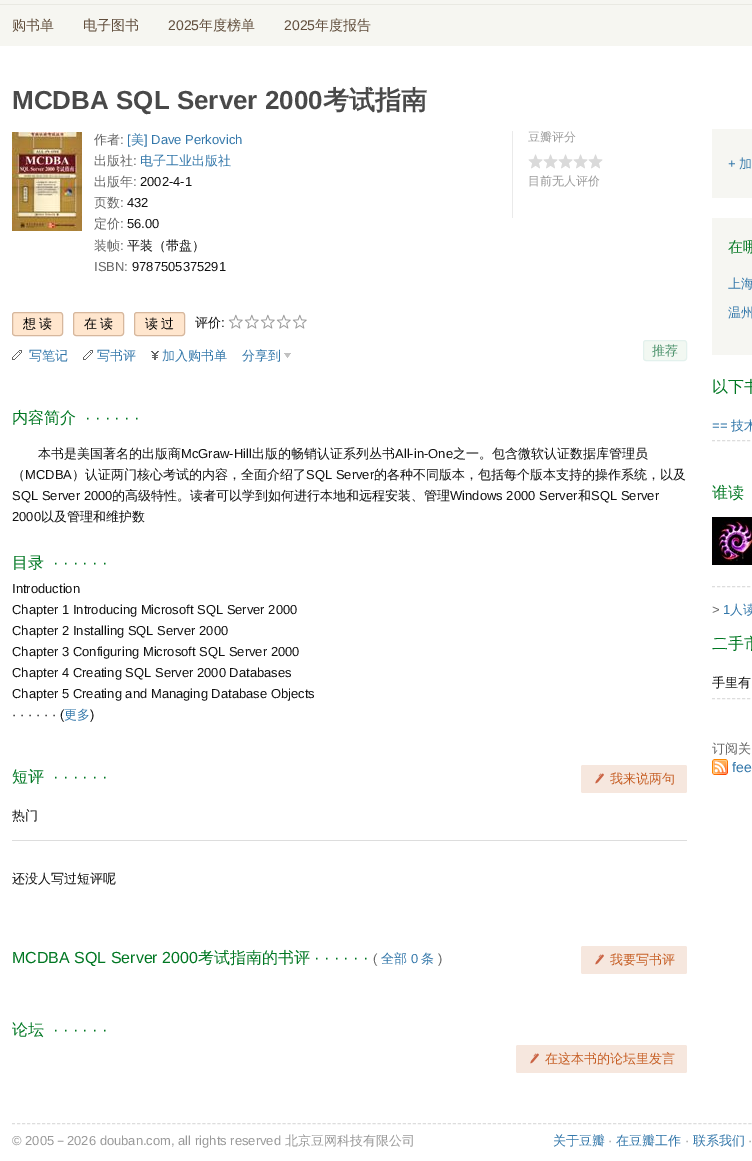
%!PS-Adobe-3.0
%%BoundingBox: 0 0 752 1161
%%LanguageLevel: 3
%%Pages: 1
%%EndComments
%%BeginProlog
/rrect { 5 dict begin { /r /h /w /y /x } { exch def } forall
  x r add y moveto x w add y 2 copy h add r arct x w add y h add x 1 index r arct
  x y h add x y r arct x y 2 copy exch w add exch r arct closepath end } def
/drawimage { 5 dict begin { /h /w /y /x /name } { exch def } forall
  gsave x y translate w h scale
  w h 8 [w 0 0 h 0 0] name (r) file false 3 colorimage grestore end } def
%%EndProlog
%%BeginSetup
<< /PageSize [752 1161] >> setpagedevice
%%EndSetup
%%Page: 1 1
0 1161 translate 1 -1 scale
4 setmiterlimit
1 setgray
0 0 752 1161 rectfill
0.965 0.965 0.945 setrgbcolor
0 0 752 46 rectfill
0.914 0.914 0.886 setrgbcolor
0 4 752 1 rectfill
(images/1.raw) 12 132 70 99 drawimage
0.918 setgray
512 131 1 87 rectfill
(images/2.raw) 528 154 75 15 drawimage
1 0.902 0.808 setrgbcolor
12.5 312.5 50 23 2.5 rrect gsave fill grestore
0.839 0.718 0.616 setrgbcolor
stroke
1 0.902 0.808 setrgbcolor
73.5 312.5 50 23 2.5 rrect gsave fill grestore
0.839 0.718 0.616 setrgbcolor
stroke
1 0.902 0.808 setrgbcolor
134.5 312.5 50 23 2.5 rrect gsave fill grestore
0.839 0.718 0.616 setrgbcolor
stroke
(images/3.raw) 228 314 15 15 drawimage
(images/3.raw) 244 314 15 15 drawimage
(images/3.raw) 260 314 15 15 drawimage
(images/3.raw) 276 314 15 15 drawimage
(images/3.raw) 292 314 15 15 drawimage
(images/4.raw) 12 350 10 10 drawimage
(images/4.raw) 83 350 10 10 drawimage
(images/5.raw) 151 351 8 9 drawimage
(images/6.raw) 284 353 7 5 drawimage
0.949 0.973 0.949 setrgbcolor
643.5 340.5 43 20 2.5 rrect gsave fill grestore
0.89 0.945 0.929 setrgbcolor
stroke
0.965 0.906 0.871 setrgbcolor
581 765 106 28 2 rrect fill
(images/7.raw) 595 773 9 11 drawimage
0.867 setgray
12 840 675 1 0.5 rrect fill
0.965 0.906 0.871 setrgbcolor
581 946 106 28 2 rrect fill
(images/7.raw) 595 954 9 11 drawimage
516 1045 171 28 2 rrect fill
(images/7.raw) 530 1053 9 11 drawimage
0.965 0.965 0.949 setrgbcolor
712 129 40 69 rectfill
712 218 40 137 rectfill
0.867 setgray
[3 2.03] 0 setdash
newpath 712 440.5 moveto 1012 440.5 lineto stroke
(images/8.raw) 712 517 40 48 drawimage
newpath 712 586.5 moveto 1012 586.5 lineto stroke
newpath 712 698.5 moveto 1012 698.5 lineto stroke
(images/9.raw) 712 759 16 16 drawimage
[3 2.01] 0 setdash
newpath 12 1123.5 moveto 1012 1123.5 lineto stroke
/WenQuanYiZenHei-Medium [14 0 0 -14 0 0] selectfont
0.38 0.306 0.235 setrgbcolor
12 30 moveto (购书单) show
83 30 moveto (电子图书) show
/LiberationSans-Regular [14 0 0 -14 0 0] selectfont
168 30 moveto (2025) show
/WenQuanYiZenHei-Medium [14 0 0 -14 0 0] selectfont
199 30 moveto (年度榜单) show
/LiberationSans-Regular [14 0 0 -14 0 0] selectfont
284 30 moveto (2025) show
/WenQuanYiZenHei-Medium [14 0 0 -14 0 0] selectfont
315 30 moveto (年度报告) show
/LiberationSans-Bold [26 0 0 -26 0 0] selectfont
0.286 setgray
12 109 moveto (MCDBA SQL Server 2000) show
/WenQuanYiZenHei-Bold [26 0 0 -26 0 0] selectfont
323 109 moveto (考试指南) show
/WenQuanYiZenHei-Medium [13 0 0 -13 0 0] selectfont
0.4 setgray
94 144 moveto (作者) show
/LiberationSans-Regular [13 0 0 -13 0 0] selectfont
120 144 moveto (:) show
0.2 0.467 0.667 setrgbcolor
127 144 moveto ([) show
/WenQuanYiZenHei-Medium [13 0 0 -13 0 0] selectfont
131 144 moveto (美) show
/LiberationSans-Regular [13 0 0 -13 0 0] selectfont
144 144 moveto (] Dave Perkovich) show
/WenQuanYiZenHei-Medium [13 0 0 -13 0 0] selectfont
0.4 setgray
94 165 moveto (出版社) show
/LiberationSans-Regular [13 0 0 -13 0 0] selectfont
133 165 moveto (:) show
/WenQuanYiZenHei-Medium [13 0 0 -13 0 0] selectfont
0.2 0.467 0.667 setrgbcolor
140 165 moveto (电子工业出版社) show
0.4 setgray
94 186 moveto (出版年) show
/LiberationSans-Regular [13 0 0 -13 0 0] selectfont
133 186 moveto (:) show
0.067 setgray
140 186 moveto (2002-4-1) show
/WenQuanYiZenHei-Medium [13 0 0 -13 0 0] selectfont
0.4 setgray
94 207 moveto (页数) show
/LiberationSans-Regular [13 0 0 -13 0 0] selectfont
120 207 moveto (:) show
0.067 setgray
127 207 moveto (432) show
/WenQuanYiZenHei-Medium [13 0 0 -13 0 0] selectfont
0.4 setgray
94 228 moveto (定价) show
/LiberationSans-Regular [13 0 0 -13 0 0] selectfont
120 228 moveto (:) show
0.067 setgray
127 228 moveto (56.00) show
/WenQuanYiZenHei-Medium [13 0 0 -13 0 0] selectfont
0.4 setgray
94 250 moveto (装帧) show
/LiberationSans-Regular [13 0 0 -13 0 0] selectfont
120 250 moveto (:) show
/WenQuanYiZenHei-Medium [13 0 0 -13 0 0] selectfont
0.067 setgray
127 250 moveto (平装（带盘）) show
/LiberationSans-Regular [13 0 0 -13 0 0] selectfont
0.4 setgray
94 271 moveto (ISBN:) show
0.067 setgray
132 271 moveto (9787505375291) show
/WenQuanYiZenHei-Medium [12 0 0 -12 0 0] selectfont
0.6 setgray
528 141 moveto (豆瓣评分) show
528 185 moveto (目前无人评价) show
/WenQuanYiZenHei-Medium [13 0 0 -13 0 0] selectfont
0 setgray
23 328 moveto 3 0 (想读) ashow
84 328 moveto 3 0 (在读) ashow
145 328 moveto 3 0 (读过) ashow
0.067 setgray
195 327 moveto (评价) show
/LiberationSans-Regular [13 0 0 -13 0 0] selectfont
221 327 moveto (:) show
/WenQuanYiZenHei-Medium [13 0 0 -13 0 0] selectfont
0.2 0.467 0.667 setrgbcolor
29 360 moveto (写笔记) show
97 360 moveto (写书评) show
162 360 moveto (加入购书单) show
242 360 moveto (分享到) show
0.31 0.58 0.431 setrgbcolor
652 355 moveto (推荐) show
/WenQuanYiZenHei-Medium [16 0 0 -16 0 0] selectfont
0 0.467 0.133 setrgbcolor
12 423 moveto (内容简介) show
/LiberationSans-Regular [16 0 0 -16 0 0] selectfont
85 423 moveto (· · · · · ·) show
/WenQuanYiZenHei-Medium [13 0 0 -13 0 0] selectfont
0.067 setgray
38 458 moveto (本书是美国著名的出版商) show
/LiberationSans-Regular [13 0 0 -13 0 0] selectfont
181 458 moveto (McGraw-Hill) show
/WenQuanYiZenHei-Medium [13 0 0 -13 0 0] selectfont
252 458 moveto (出版的畅销认证系列丛书) show
/LiberationSans-Regular [13 0 0 -13 0 0] selectfont
395 458 moveto (All-in-One) show
/WenQuanYiZenHei-Medium [13 0 0 -13 0 0] selectfont
453 458 moveto (之一。包含微软认证数据库管理员) show
12 479 moveto (（) show
/LiberationSans-Regular [13 0 0 -13 0 0] selectfont
25 479 moveto (MCDBA) show
/WenQuanYiZenHei-Medium [13 0 0 -13 0 0] selectfont
72 479 moveto (）认证两门核心考试的内容，全面介绍了) show
/LiberationSans-Regular [13 0 0 -13 0 0] selectfont
306 479 moveto (SQL Server) show
/WenQuanYiZenHei-Medium [13 0 0 -13 0 0] selectfont
374 479 moveto (的各种不同版本，包括每个版本支持的操作系统，以及) show
/LiberationSans-Regular [13 0 0 -13 0 0] selectfont
12 500 moveto (SQL Server 2000) show
/WenQuanYiZenHei-Medium [13 0 0 -13 0 0] selectfont
112 500 moveto (的高级特性。读者可以学到如何进行本地和远程安装、管理) show
/LiberationSans-Regular [13 0 0 -13 0 0] selectfont
450 500 moveto (Windows 2000 Server) show
/WenQuanYiZenHei-Medium [13 0 0 -13 0 0] selectfont
578 500 moveto (和) show
/LiberationSans-Regular [13 0 0 -13 0 0] selectfont
591 500 moveto (SQL Server) show
12 521 moveto (2000) show
/WenQuanYiZenHei-Medium [13 0 0 -13 0 0] selectfont
41 521 moveto (以及管理和维护数) show
/WenQuanYiZenHei-Medium [16 0 0 -16 0 0] selectfont
0 0.467 0.133 setrgbcolor
12 568 moveto (目录) show
/LiberationSans-Regular [16 0 0 -16 0 0] selectfont
53 568 moveto (· · · · · ·) show
/LiberationSans-Regular [13 0 0 -13 0 0] selectfont
0.067 setgray
12 593 moveto (Introduction) show
12 614 moveto (Chapter 1 Introducing Microsoft SQL Server 2000) show
12 635 moveto (Chapter 2 Installing SQL Server 2000) show
12 656 moveto (Chapter 3 Configuring Microsoft SQL Server 2000) show
12 677 moveto (Chapter 4 Creating SQL Server 2000 Databases) show
12 698 moveto (Chapter 5 Creating and Managing Database Objects) show
12 719 moveto (· · · · · · \() show
/WenQuanYiZenHei-Medium [13 0 0 -13 0 0] selectfont
0.2 0.467 0.667 setrgbcolor
64 719 moveto (更多) show
/LiberationSans-Regular [13 0 0 -13 0 0] selectfont
0.067 setgray
90 719 moveto (\)) show
/WenQuanYiZenHei-Medium [16 0 0 -16 0 0] selectfont
0 0.467 0.133 setrgbcolor
12 782 moveto (短评) show
/LiberationSans-Regular [16 0 0 -16 0 0] selectfont
53 782 moveto (· · · · · ·) show
/WenQuanYiZenHei-Medium [13 0 0 -13 0 0] selectfont
0.776 0.369 0.141 setrgbcolor
610 783 moveto (我来说两句) show
0.067 setgray
12 820 moveto (热门) show
12 883 moveto (还没人写过短评呢) show
/LiberationSans-Regular [16 0 0 -16 0 0] selectfont
0 0.467 0.133 setrgbcolor
12 963 moveto (MCDBA SQL Server 2000) show
/WenQuanYiZenHei-Medium [16 0 0 -16 0 0] selectfont
198 963 moveto (考试指南的书评) show
/LiberationSans-Regular [16 0 0 -16 0 0] selectfont
314 963 moveto (· · · · · ·) show
/LiberationSans-Regular [13 0 0 -13 0 0] selectfont
0.4 setgray
373 963 moveto (\() show
/WenQuanYiZenHei-Medium [13 0 0 -13 0 0] selectfont
0.2 0.467 0.667 setrgbcolor
381 963 moveto (全部) show
/LiberationSans-Regular [13 0 0 -13 0 0] selectfont
411 963 moveto (0) show
/WenQuanYiZenHei-Medium [13 0 0 -13 0 0] selectfont
421 963 moveto (条) show
/LiberationSans-Regular [13 0 0 -13 0 0] selectfont
0.4 setgray
438 963 moveto (\)) show
/WenQuanYiZenHei-Medium [13 0 0 -13 0 0] selectfont
0.776 0.369 0.141 setrgbcolor
610 964 moveto (我要写书评) show
/WenQuanYiZenHei-Medium [16 0 0 -16 0 0] selectfont
0 0.467 0.133 setrgbcolor
12 1035 moveto (论坛) show
/LiberationSans-Regular [16 0 0 -16 0 0] selectfont
53 1035 moveto (· · · · · ·) show
/WenQuanYiZenHei-Medium [13 0 0 -13 0 0] selectfont
0.776 0.369 0.141 setrgbcolor
545 1063 moveto (在这本书的论坛里发言) show
/LiberationSans-Regular [13 0 0 -13 0 0] selectfont
0.2 0.467 0.667 setrgbcolor
728 168 moveto (+) show
/WenQuanYiZenHei-Medium [13 0 0 -13 0 0] selectfont
739 168 moveto (加) show
/WenQuanYiZenHei-Medium [15 0 0 -15 0 0] selectfont
0.043 0.486 0.165 setrgbcolor
728 252 moveto (在哪) show
/WenQuanYiZenHei-Medium [13 0 0 -13 0 0] selectfont
0.2 0.467 0.667 setrgbcolor
728 288 moveto (上海) show
728 317 moveto (温州) show
/WenQuanYiZenHei-Medium [16 0 0 -16 0 0] selectfont
0 0.467 0.133 setrgbcolor
712 392 moveto (以下书) show
/LiberationSans-Regular [13 0 0 -13 0 0] selectfont
0.2 0.467 0.667 setrgbcolor
712 430 moveto (==) show
/WenQuanYiZenHei-Medium [13 0 0 -13 0 0] selectfont
731 430 moveto (技术) show
/WenQuanYiZenHei-Medium [16 0 0 -16 0 0] selectfont
0 0.467 0.133 setrgbcolor
712 498 moveto (谁读) show
/LiberationSans-Regular [13 0 0 -13 0 0] selectfont
0.4 setgray
712 614 moveto (>) show
0.2 0.467 0.667 setrgbcolor
723 614 moveto (1) show
/WenQuanYiZenHei-Medium [13 0 0 -13 0 0] selectfont
730 614 moveto (人读) show
/WenQuanYiZenHei-Medium [16 0 0 -16 0 0] selectfont
0 0.467 0.133 setrgbcolor
712 649 moveto (二手市) show
/WenQuanYiZenHei-Medium [13 0 0 -13 0 0] selectfont
0.067 setgray
712 687 moveto (手里有) show
0.4 setgray
712 753 moveto (订阅关) show
/LiberationSans-Regular [14 0 0 -14 0 0] selectfont
0.2 0.467 0.667 setrgbcolor
732 772 moveto (fee) show
/LiberationSans-Regular [13 0 0 -13 0 0] selectfont
0.6 setgray
12 1145 moveto (© 2005) show
/WenQuanYiZenHei-Medium [13 0 0 -13 0 0] selectfont
54 1145 moveto (－) show
/LiberationSans-Regular [13 0 0 -13 0 0] selectfont
67 1145 moveto (2026 douban.com, all rights reserved) show
/WenQuanYiZenHei-Medium [13 0 0 -13 0 0] selectfont
285 1145 moveto (北京豆网科技有限公司) show
0.2 0.467 0.667 setrgbcolor
553 1145 moveto (关于豆瓣) show
/LiberationSans-Regular [13 0 0 -13 0 0] selectfont
0.6 setgray
608 1145 moveto (·) show
/WenQuanYiZenHei-Medium [13 0 0 -13 0 0] selectfont
0.2 0.467 0.667 setrgbcolor
616 1145 moveto (在豆瓣工作) show
/LiberationSans-Regular [13 0 0 -13 0 0] selectfont
0.6 setgray
685 1145 moveto (·) show
/WenQuanYiZenHei-Medium [13 0 0 -13 0 0] selectfont
0.2 0.467 0.667 setrgbcolor
693 1145 moveto (联系我们) show
/LiberationSans-Regular [13 0 0 -13 0 0] selectfont
0.6 setgray
748 1145 moveto (·) show
showpage
%%EOF
